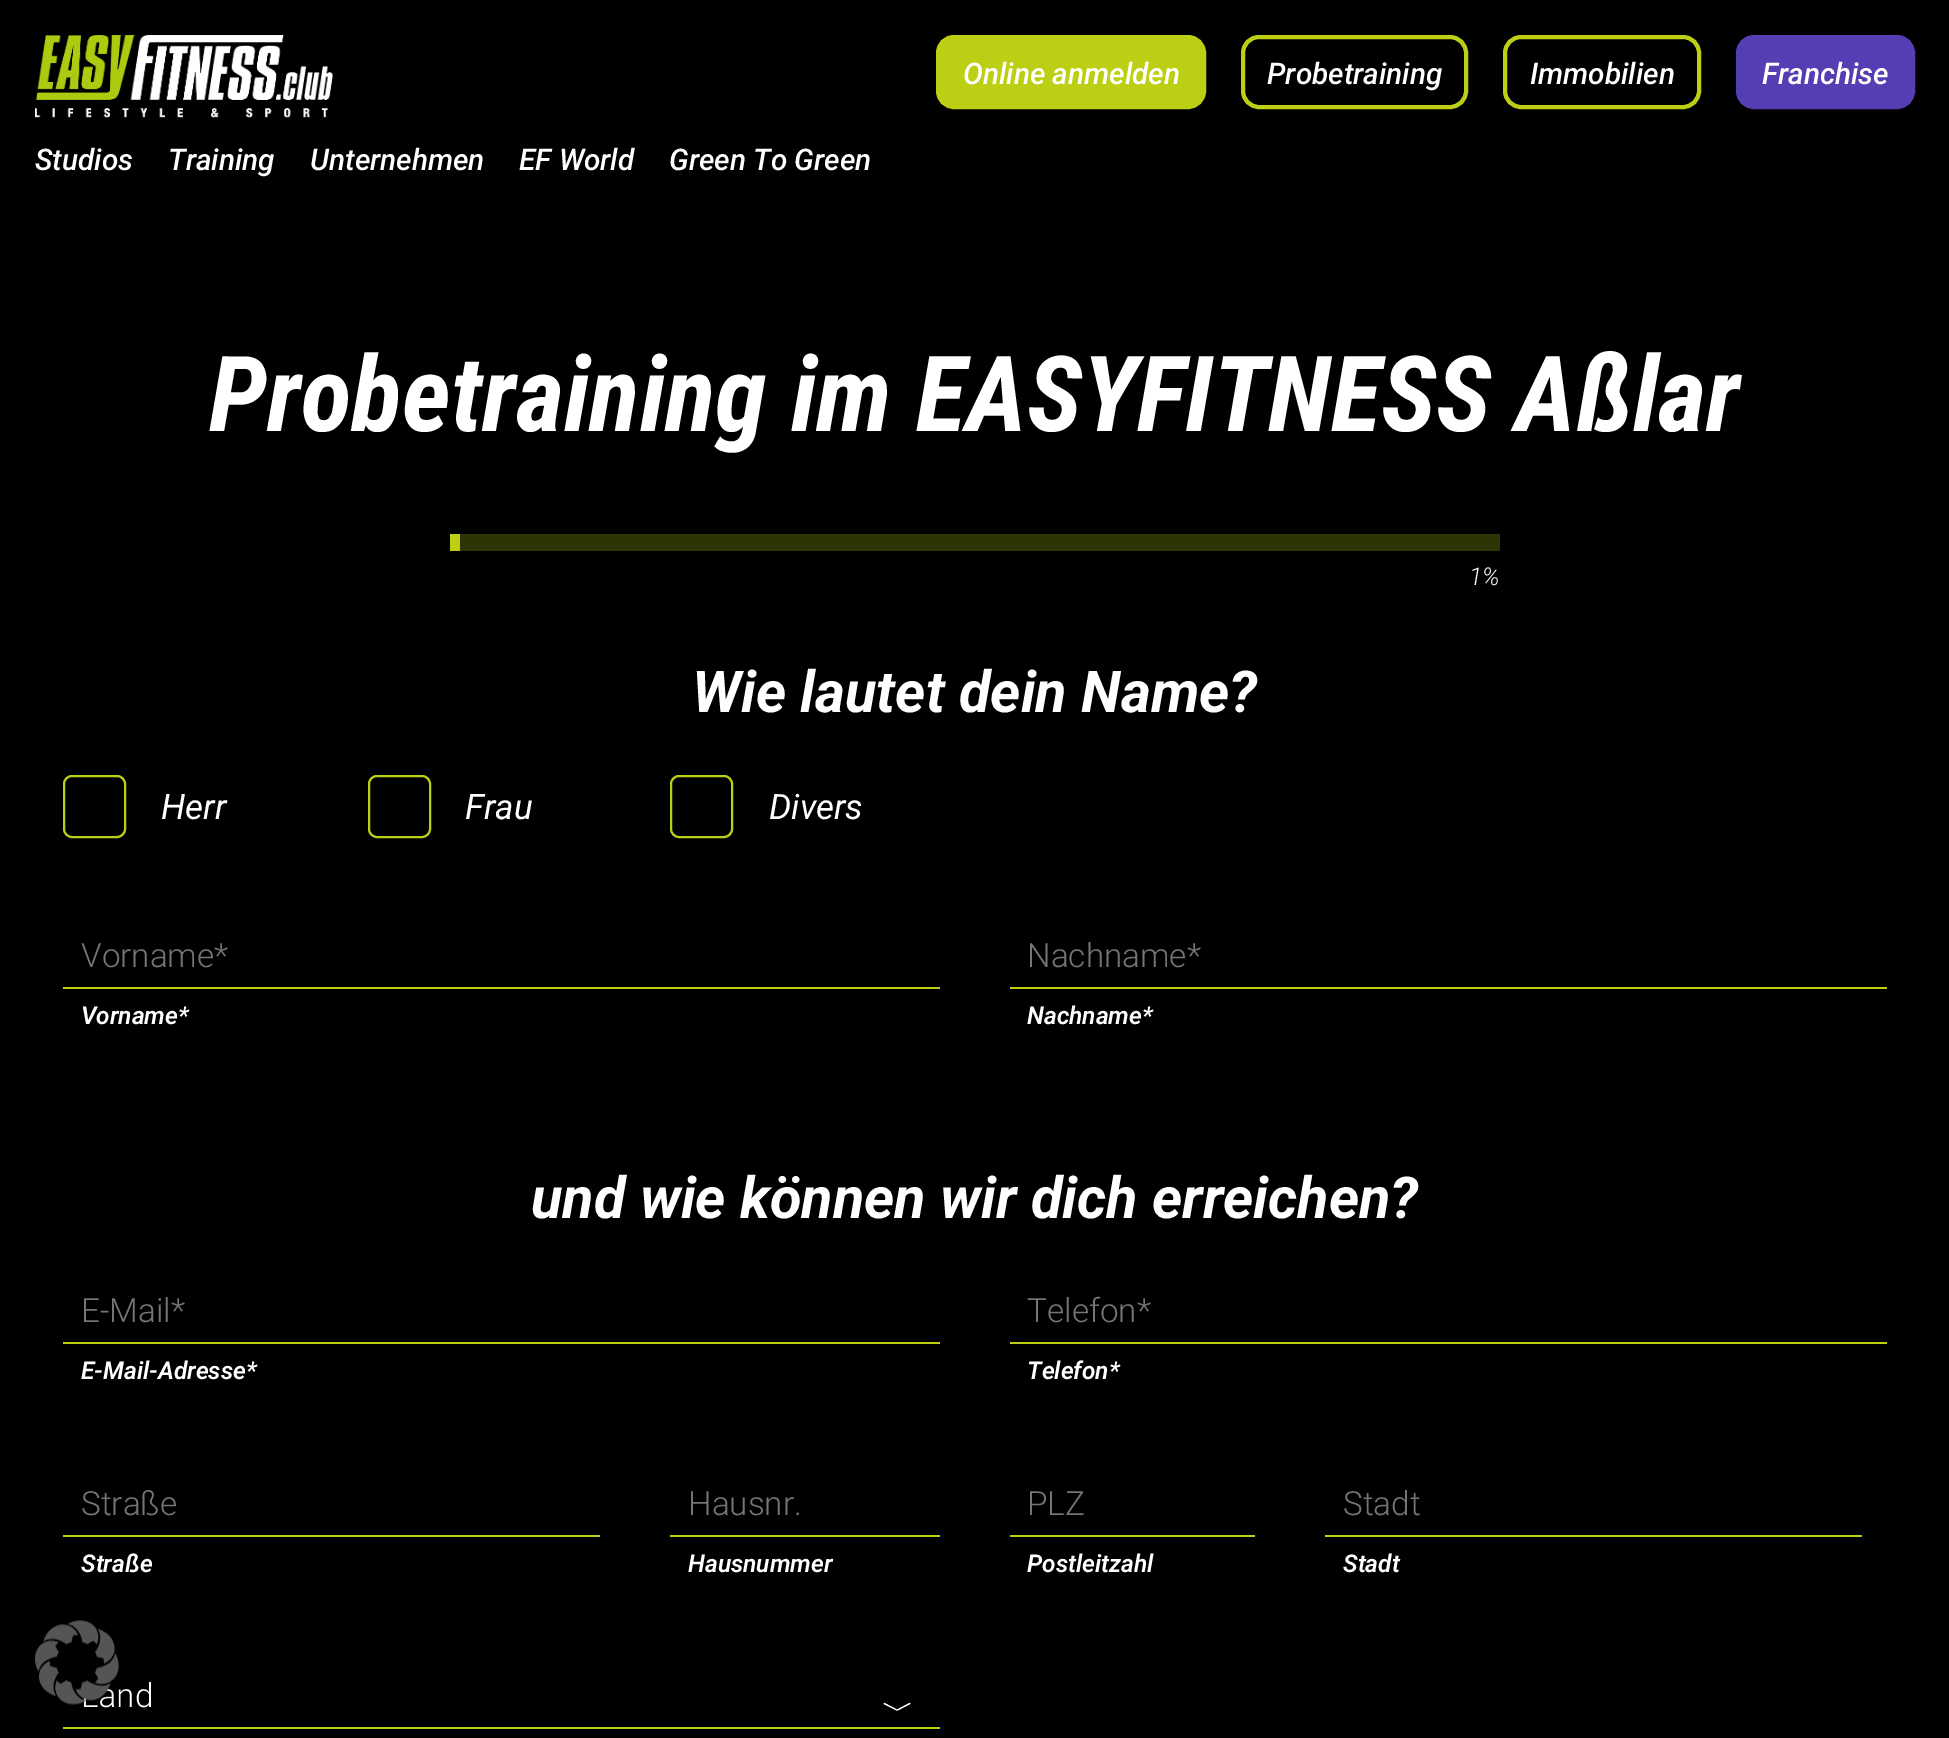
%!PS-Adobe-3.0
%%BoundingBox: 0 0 1949 1738
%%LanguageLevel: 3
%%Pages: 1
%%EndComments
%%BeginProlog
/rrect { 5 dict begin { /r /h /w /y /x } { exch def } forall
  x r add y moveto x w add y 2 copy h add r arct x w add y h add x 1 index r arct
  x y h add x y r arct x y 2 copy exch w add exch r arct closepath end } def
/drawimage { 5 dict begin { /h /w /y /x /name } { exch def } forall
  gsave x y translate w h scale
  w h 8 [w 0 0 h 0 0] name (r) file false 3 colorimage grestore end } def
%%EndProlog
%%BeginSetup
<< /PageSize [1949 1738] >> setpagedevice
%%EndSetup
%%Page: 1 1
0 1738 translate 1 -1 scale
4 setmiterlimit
0 setgray
0 0 1949 1738 rectfill
(images/1.raw) 35 35 298 83 drawimage
0.741 0.812 0.082 setrgbcolor
938 37 266 70 16 rrect gsave fill grestore
4 setlinewidth
stroke
1243 37 223 70 16 rrect stroke
1505 37 194 70 16 rrect stroke
0.333 0.243 0.706 setrgbcolor
1738 37 175 70 16 rrect gsave fill grestore
stroke
0.18 0.208 0.02 setrgbcolor
460 534 1040 17 rectfill
0.741 0.812 0.082 setrgbcolor
450 534 10 17 rectfill
2 setlinewidth
64 776 61 61 8 rrect stroke
369 776 61 61 8 rrect stroke
671 776 61 61 8 rrect stroke
63 987 877 2 rectfill
1010 987 877 2 rectfill
63 1342 877 2 rectfill
1010 1342 877 2 rectfill
63 1535 537 2 rectfill
670 1535 270 2 rectfill
1010 1535 245 2 rectfill
1325 1535 537 2 rectfill
63 1727 877 2 rectfill
/Roboto-MediumItalic [29.75 0 0 -29.75 0 0] selectfont
1 setgray
963 84 moveto (Online anmelden) show
1267 84 moveto (Probetraining) show
1530 84 moveto (Immobilien) show
1762 84 moveto (Franchise) show
35 170 moveto (Studios) show
168 170 moveto (Training) show
310 170 moveto (Unternehmen) show
519 170 moveto (EF World) show
669 170 moveto (Green To Green) show
/RobotoCondensed-BoldItalic [105 0 0 -105 0 0] selectfont
209 431 moveto (Probetraining im EASYFITNESS Aßlar) show
/Roboto-LightItalic [24.5 0 0 -24.5 0 0] selectfont
1469 585 moveto (1%) show
/Roboto-BoldItalic [57.75 0 0 -57.75 0 0] selectfont
692 712 moveto (Wie lautet dein Name?) show
/Roboto-Italic [35 0 0 -35 0 0] selectfont
161 819 moveto (Herr) show
465 819 moveto (Frau) show
769 819 moveto (Divers) show
/Roboto-Light [33.25 0 0 -33.25 0 0] selectfont
0.459 setgray
81 967 moveto (Vorname*) show
/Roboto-SemiBoldItalic [24.5 0 0 -24.5 0 0] selectfont
1 setgray
81 1024 moveto (Vorname*) show
/Roboto-Light [33.25 0 0 -33.25 0 0] selectfont
0.459 setgray
1027 967 moveto (Nachname*) show
/Roboto-SemiBoldItalic [24.5 0 0 -24.5 0 0] selectfont
1 setgray
1027 1024 moveto (Nachname*) show
/Roboto-BoldItalic [57.75 0 0 -57.75 0 0] selectfont
531 1218 moveto (und wie können wir dich erreichen?) show
/Roboto-Light [33.25 0 0 -33.25 0 0] selectfont
0.459 setgray
81 1322 moveto (E-Mail*) show
/Roboto-SemiBoldItalic [24.5 0 0 -24.5 0 0] selectfont
1 setgray
81 1379 moveto (E-Mail-Adresse*) show
/Roboto-Light [33.25 0 0 -33.25 0 0] selectfont
0.459 setgray
1027 1322 moveto (Telefon*) show
/Roboto-SemiBoldItalic [24.5 0 0 -24.5 0 0] selectfont
1 setgray
1027 1379 moveto (Telefon*) show
/Roboto-Light [33.25 0 0 -33.25 0 0] selectfont
0.459 setgray
81 1515 moveto (Straße) show
/Roboto-SemiBoldItalic [24.5 0 0 -24.5 0 0] selectfont
1 setgray
81 1572 moveto (Straße) show
/Roboto-Light [33.25 0 0 -33.25 0 0] selectfont
0.459 setgray
688 1515 moveto (Hausnr.) show
/Roboto-SemiBoldItalic [24.5 0 0 -24.5 0 0] selectfont
1 setgray
688 1572 moveto (Hausnummer) show
/Roboto-Light [33.25 0 0 -33.25 0 0] selectfont
0.459 setgray
1027 1515 moveto (PLZ) show
/Roboto-SemiBoldItalic [24.5 0 0 -24.5 0 0] selectfont
1 setgray
1027 1572 moveto (Postleitzahl) show
/Roboto-Light [33.25 0 0 -33.25 0 0] selectfont
0.459 setgray
1343 1515 moveto (Stadt) show
/Roboto-SemiBoldItalic [24.5 0 0 -24.5 0 0] selectfont
1 setgray
1343 1572 moveto (Stadt) show
/Roboto-Light [33.25 0 0 -33.25 0 0] selectfont
81 1707 moveto (Land) show
(images/2.raw) 35 1620 84 87 drawimage
/WenQuanYiZenHei-Medium [32 0 0 -32 0 0] selectfont
882 1721 moveto (﹀) show
showpage
%%EOF
